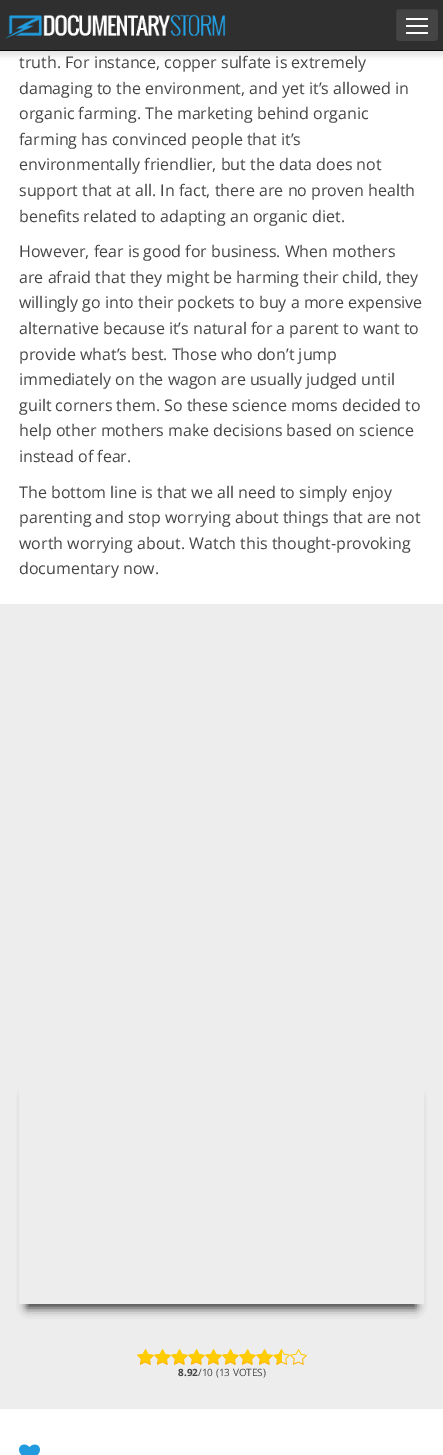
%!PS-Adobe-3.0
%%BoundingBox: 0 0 443 1455
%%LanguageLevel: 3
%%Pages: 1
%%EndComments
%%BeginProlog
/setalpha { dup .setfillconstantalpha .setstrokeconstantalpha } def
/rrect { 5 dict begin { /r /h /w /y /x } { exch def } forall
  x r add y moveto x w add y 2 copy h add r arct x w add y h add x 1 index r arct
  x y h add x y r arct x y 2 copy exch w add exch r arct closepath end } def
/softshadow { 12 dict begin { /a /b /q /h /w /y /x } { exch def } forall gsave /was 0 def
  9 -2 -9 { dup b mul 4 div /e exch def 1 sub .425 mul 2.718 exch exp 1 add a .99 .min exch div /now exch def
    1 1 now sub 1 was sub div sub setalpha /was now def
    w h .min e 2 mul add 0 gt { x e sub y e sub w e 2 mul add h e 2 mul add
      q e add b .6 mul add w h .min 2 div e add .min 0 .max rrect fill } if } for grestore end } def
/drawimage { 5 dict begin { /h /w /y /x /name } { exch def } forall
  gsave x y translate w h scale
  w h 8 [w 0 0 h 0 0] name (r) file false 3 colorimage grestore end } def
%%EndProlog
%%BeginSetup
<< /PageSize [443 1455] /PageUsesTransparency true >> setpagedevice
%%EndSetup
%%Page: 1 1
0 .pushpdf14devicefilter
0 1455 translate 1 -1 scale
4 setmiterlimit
1 setgray
0 0 443 1455 rectfill
0 setgray
-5 -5 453 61 0 2.5 0.1 softshadow
0.184 setgray
0 0 443 50 rectfill
0.031 setgray
0 50 443 1 rectfill
(images/1.raw) 5 14 221 25 drawimage
0.267 setgray
395.5 8.5 43 33 3.5 rrect gsave fill grestore
0.184 setgray
stroke
1 setgray
406 18 22 2 1 rrect fill
406 25 22 2 1 rrect fill
406 32 22 2 1 rrect fill
0.929 setgray
0 604 443 805 rectfill
gsave
newpath 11 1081 moveto 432 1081 lineto 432 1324 lineto 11 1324 lineto closepath 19 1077 moveto 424 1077 lineto 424 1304 lineto 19 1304 lineto closepath eoclip newpath
0.184 setgray
27 1097 389 211 0 5 1 softshadow
grestore
(images/2.raw) 137 1349 17 16 drawimage
(images/2.raw) 154 1349 17 16 drawimage
(images/2.raw) 171 1349 17 16 drawimage
(images/2.raw) 188 1349 17 16 drawimage
(images/2.raw) 205 1349 17 16 drawimage
(images/2.raw) 222 1349 17 16 drawimage
(images/2.raw) 239 1349 17 16 drawimage
(images/2.raw) 256 1349 17 16 drawimage
(images/3.raw) 273 1349 17 16 drawimage
(images/4.raw) 290 1349 17 16 drawimage
(images/5.raw) 19 1444 21 11 drawimage
/OpenSans-Regular [16 0 0 -16 0 0] selectfont
0.267 setgray
19 68 moveto (truth. For instance, copper sulfate is extremely) show
19 94 moveto (damaging to the environment, and yet it’s allowed in) show
19 119 moveto (organic farming. The marketing behind organic) show
19 145 moveto (farming has convinced people that it’s) show
19 170 moveto (environmentally friendlier, but the data does not) show
19 196 moveto (support that at all. In fact, there are no proven health) show
19 222 moveto (benefits related to adapting an organic diet.) show
19 257 moveto (However, fear is good for business. When mothers) show
19 283 moveto (are afraid that they might be harming their child, they) show
19 308 moveto (willingly go into their pockets to buy a more expensive) show
19 334 moveto (alternative because it’s natural for a parent to want to) show
19 360 moveto (provide what’s best. Those who don’t jump) show
19 385 moveto (immediately on the wagon are usually judged until) show
19 411 moveto (guilt corners them. So these science moms decided to) show
19 436 moveto (help other mothers make decisions based on science) show
19 462 moveto (instead of fear.) show
19 498 moveto (The bottom line is that we all need to simply enjoy) show
19 523 moveto (parenting and stop worrying about things that are not) show
19 549 moveto (worth worrying about. Watch this thought-provoking) show
19 574 moveto (documentary now.) show
/OpenSans-Bold [10 0 0 -10 0 0] selectfont
178 1376 moveto (8.92) show
/OpenSans-Regular [10 0 0 -10 0 0] selectfont
198 1376 moveto (/10 \(13 VOTES\)) show
.poppdf14devicefilter showpage
%%EOF
